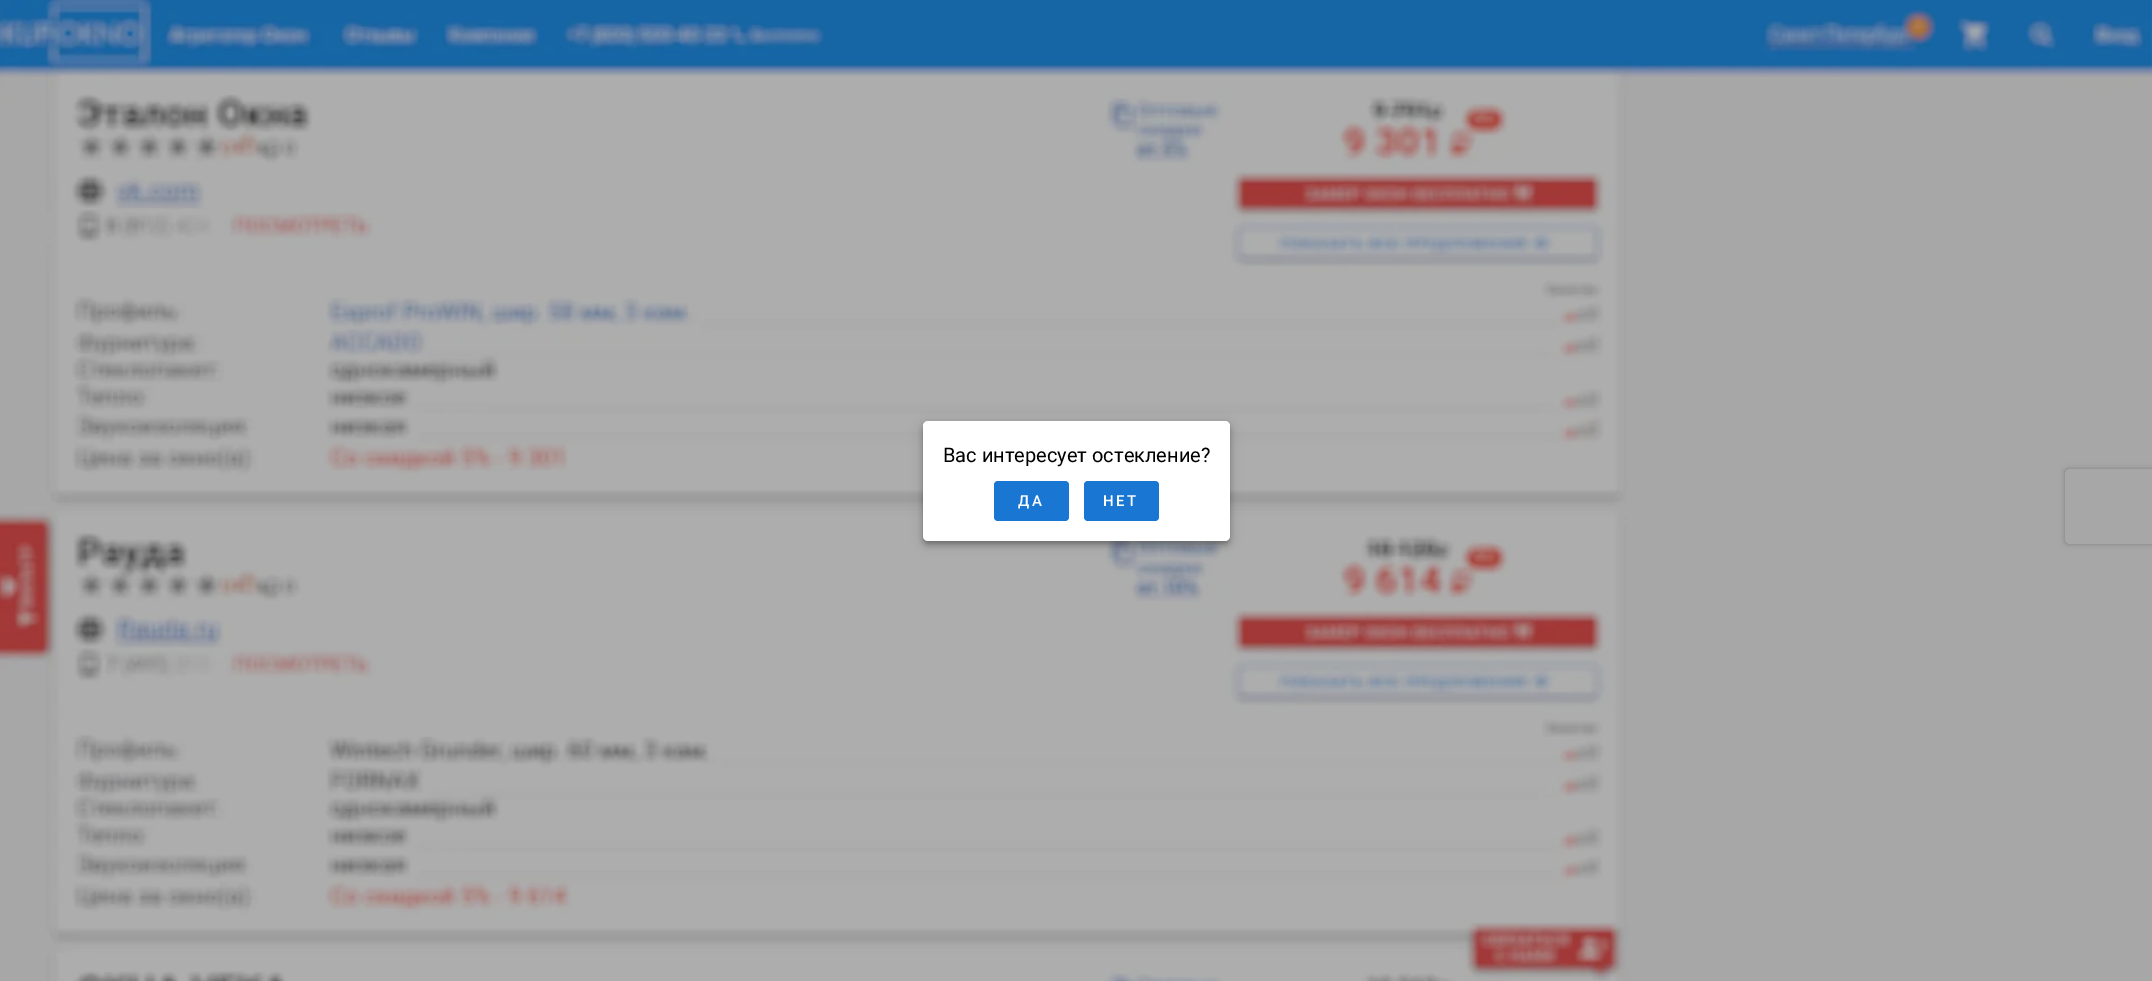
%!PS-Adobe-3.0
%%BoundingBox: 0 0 2152 981
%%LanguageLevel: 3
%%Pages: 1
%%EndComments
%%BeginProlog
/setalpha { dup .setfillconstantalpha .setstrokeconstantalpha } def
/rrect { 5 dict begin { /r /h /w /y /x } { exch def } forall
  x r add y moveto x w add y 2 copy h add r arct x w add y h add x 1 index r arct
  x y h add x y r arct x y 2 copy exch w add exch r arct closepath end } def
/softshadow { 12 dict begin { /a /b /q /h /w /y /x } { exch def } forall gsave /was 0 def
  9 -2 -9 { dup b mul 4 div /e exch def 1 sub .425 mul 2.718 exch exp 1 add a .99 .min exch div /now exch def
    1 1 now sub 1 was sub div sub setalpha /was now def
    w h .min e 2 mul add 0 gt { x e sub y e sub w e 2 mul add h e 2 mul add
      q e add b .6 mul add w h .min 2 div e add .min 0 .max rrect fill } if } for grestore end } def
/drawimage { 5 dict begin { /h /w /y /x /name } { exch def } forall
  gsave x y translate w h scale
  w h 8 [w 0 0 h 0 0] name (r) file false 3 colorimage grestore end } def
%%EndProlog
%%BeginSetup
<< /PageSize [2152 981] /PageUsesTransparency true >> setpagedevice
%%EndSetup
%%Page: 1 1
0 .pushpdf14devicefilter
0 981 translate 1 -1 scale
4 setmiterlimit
1 setgray
0 0 2152 981 rectfill
(images/1.raw) 0 0 2152 981 drawimage
0 setgray
923 423 307 120 5 6 0.12 softshadow
923 426 307 120 5 3 0.14 softshadow
924 425 305 118 4 2.5 0.2 softshadow
1 setgray
923 421 307 120 5 rrect fill
0.098 0.463 0.824 setrgbcolor
994 481 75 40 4 rrect fill
1084 481 75 40 4 rrect fill
gsave
newpath 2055 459 moveto 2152 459 lineto 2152 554 lineto 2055 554 lineto closepath 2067.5 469 moveto 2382.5 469 lineto 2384 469 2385 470 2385 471.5 curveto 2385 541.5 lineto 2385 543 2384 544 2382.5 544 curveto 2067.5 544 lineto 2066 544 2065 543 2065 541.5 curveto 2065 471.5 lineto 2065 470 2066 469 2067.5 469 curveto closepath eoclip newpath
0.502 setgray
2065 469 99 75 2.5 3 1 softshadow
grestore
/Roboto-Regular [20 0 0 -20 0 0] selectfont
0 setgray
943 462 moveto (Вас интересует остекление?) show
/Roboto-Medium [15 0 0 -15 0 0] selectfont
1 setgray
1018 506 moveto 2.5 0 (ДА) ashow
1103 506 moveto 2.5 0 (НЕТ) ashow
.poppdf14devicefilter showpage
%%EOF
